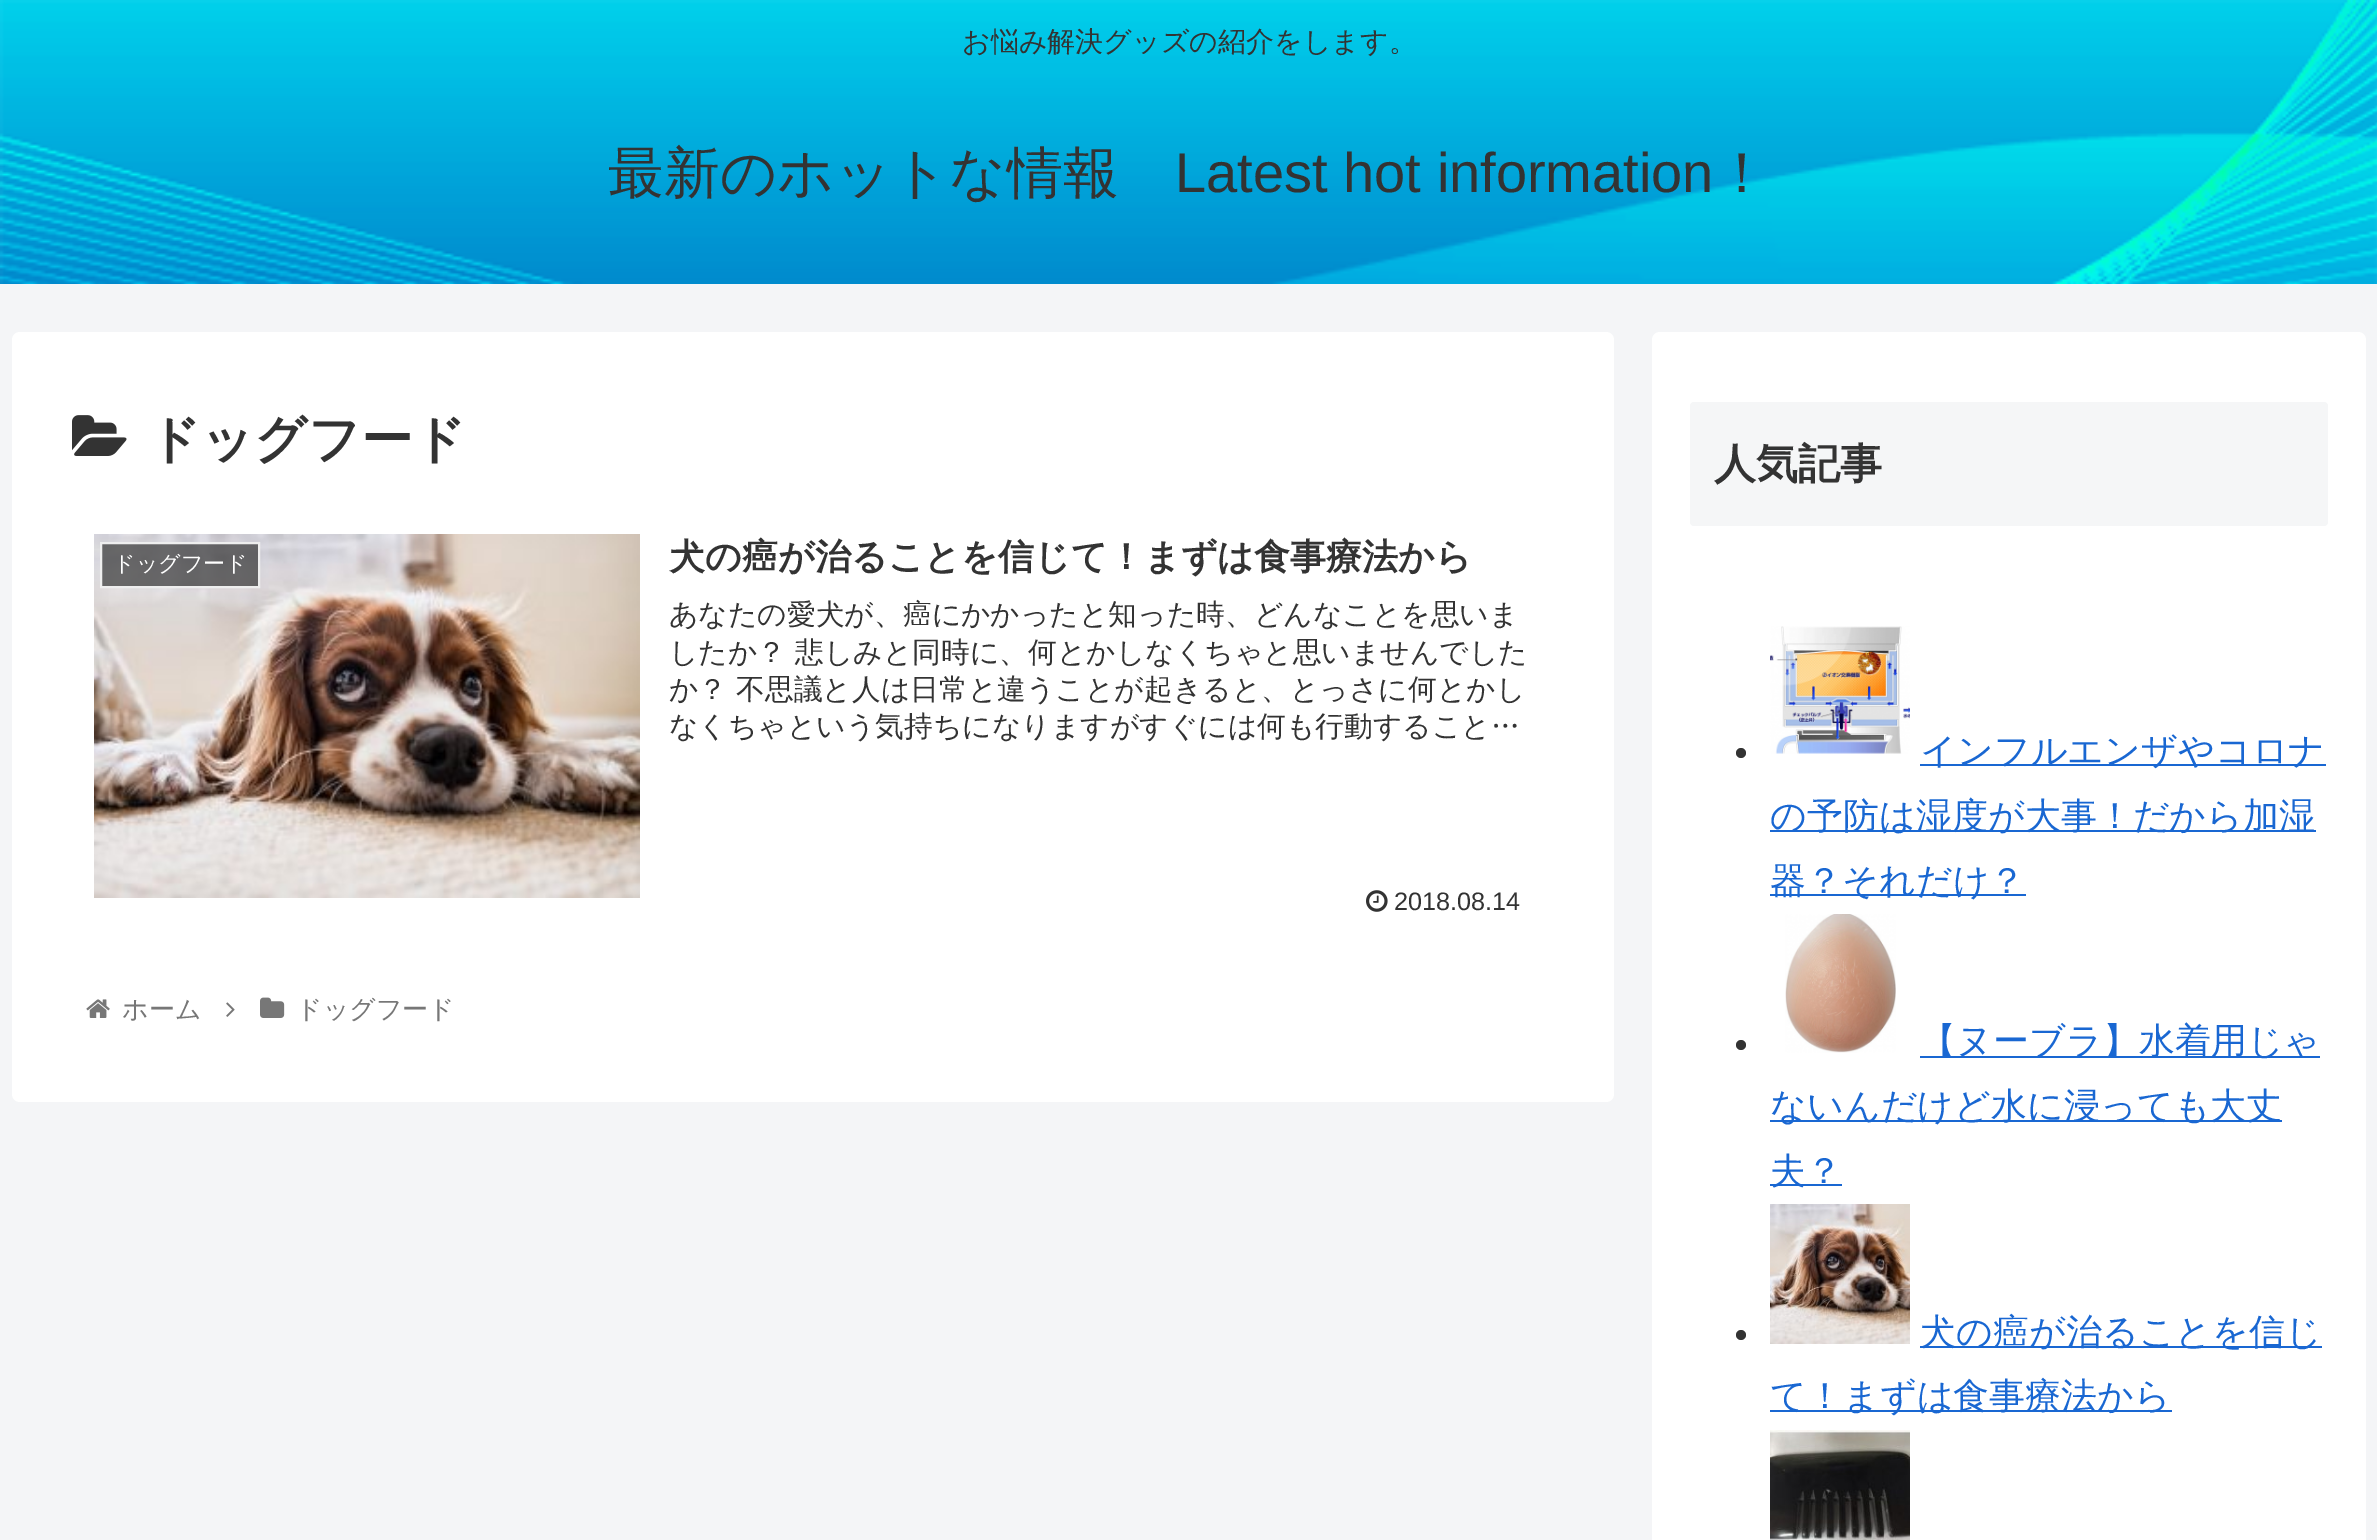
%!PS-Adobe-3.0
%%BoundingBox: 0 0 2377 1540
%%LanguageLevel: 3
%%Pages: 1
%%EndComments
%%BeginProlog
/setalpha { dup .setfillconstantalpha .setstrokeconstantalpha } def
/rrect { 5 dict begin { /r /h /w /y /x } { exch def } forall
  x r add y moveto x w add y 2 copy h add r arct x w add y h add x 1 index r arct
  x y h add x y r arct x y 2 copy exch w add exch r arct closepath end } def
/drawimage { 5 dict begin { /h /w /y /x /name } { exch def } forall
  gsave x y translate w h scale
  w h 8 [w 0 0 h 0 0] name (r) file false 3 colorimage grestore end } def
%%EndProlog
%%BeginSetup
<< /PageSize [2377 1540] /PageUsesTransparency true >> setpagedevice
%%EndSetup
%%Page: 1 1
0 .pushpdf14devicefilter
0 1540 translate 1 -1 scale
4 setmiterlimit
0.957 0.961 0.969 setrgbcolor
0 0 2377 1540 rectfill
(images/1.raw) 0 0 2377 284 drawimage
1 setgray
12 332 1602 770 8 rrect fill
(images/2.raw) 72 415 55 41 drawimage
(images/3.raw) 94 534 546 364 drawimage
0.7 setalpha
0.2 setgray
newpath 101 543 moveto 259 543 lineto 259 587 lineto 101 587 lineto closepath fill
1 setalpha
0.933 setgray
2 setlinewidth
newpath 101 543 moveto 259 543 lineto 259 587 lineto 101 587 lineto closepath stroke
(images/4.raw) 1366 890 22 22 drawimage
(images/5.raw) 86 999 24 19 drawimage
(images/6.raw) 226 1002 9 15 drawimage
(images/7.raw) 260 997 25 21 drawimage
1 setgray
1652 332 714 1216 8 rrect fill
0.961 0.965 0.969 setrgbcolor
1690 402 638 124 4 rrect fill
0.2 setgray
newpath 1741 753 5 0 360 arc closepath fill
(images/8.raw) 1770 626 140 128 drawimage
0.098 0.404 0.824 setrgbcolor
1920 764 406 2 rectfill
1770 830 546 2 rectfill
1770 894 256 2 rectfill
0.2 setgray
newpath 1741 1045 5 0 360 arc closepath fill
(images/9.raw) 1785 914 111 139 drawimage
0.098 0.404 0.824 setrgbcolor
1920 1056 400 2 rectfill
1770 1120 512 2 rectfill
1770 1184 72 2 rectfill
0.2 setgray
newpath 1741 1335 5 0 360 arc closepath fill
(images/10.raw) 1770 1204 140 140 drawimage
0.098 0.404 0.824 setrgbcolor
1920 1346 402 2 rectfill
1770 1410 402 2 rectfill
(images/11.raw) 1770 1430 140 110 drawimage
/WenQuanYiZenHei-Medium [28 0 0 -28 0 0] selectfont
0.2 setgray
962 51 moveto (お悩み解決グッズの紹介をします。) show
/WenQuanYiZenHei-Medium [56 0 0 -56 0 0] selectfont
608 192 moveto (最新のホットな情報) show
/LiberationSans-Regular [56 0 0 -56 0 0] selectfont
1175 192 moveto (Latest hot information) show
/WenQuanYiZenHei-Medium [56 0 0 -56 0 0] selectfont
1714 192 moveto (！) show
/WenQuanYiZenHei-Bold [52 0 0 -52 0 0] selectfont
148 457 moveto (ドッグフード) show
/WenQuanYiZenHei-Medium [22 0 0 -22 0 0] selectfont
1 setgray
113 571 moveto (ドッグフード) show
/WenQuanYiZenHei-Bold [36 0 0 -36 0 0] selectfont
0.2 setgray
669 569 moveto (犬の癌が治ることを信じて！まずは食事療法から) show
/WenQuanYiZenHei-Medium [28.8 0 0 -28.8 0 0] selectfont
669 624 moveto (あなたの愛犬が、癌にかかったと知った時、どんなことを思いま) show
669 662 moveto (したか？) show
795 662 moveto (悲しみと同時に、何とかしなくちゃと思いませんでした) show
669 699 moveto (か？) show
736 699 moveto (不思議と人は日常と違うことが起きると、とっさに何とかし) show
669 736 moveto (なくちゃという気持ちになりますがすぐには何も行動すること…) show
/LiberationSans-Regular [25.25 0 0 -25.25 0 0] selectfont
1394 910 moveto (2018.08.14) show
/WenQuanYiZenHei-Medium [26 0 0 -26 0 0] selectfont
0.467 setgray
122 1018 moveto (ホーム) show
296 1018 moveto (ドッグフード) show
/WenQuanYiZenHei-Bold [42 0 0 -42 0 0] selectfont
0.2 setgray
1714 478 moveto (人気記事) show
/WenQuanYiZenHei-Medium [36 0 0 -36 0 0] selectfont
0.098 0.404 0.824 setrgbcolor
1920 763 moveto (インフルエンザやコロナ) show
1770 828 moveto (の予防は湿度が大事！だから加湿) show
1770 893 moveto (器？それだけ？) show
1920 1053 moveto (【ヌーブラ】水着用じゃ) show
1770 1118 moveto (ないんだけど水に浸っても大丈) show
1770 1183 moveto (夫？) show
1920 1344 moveto (犬の癌が治ることを信じ) show
1770 1408 moveto (て！まずは食事療法から) show
.poppdf14devicefilter showpage
%%EOF
